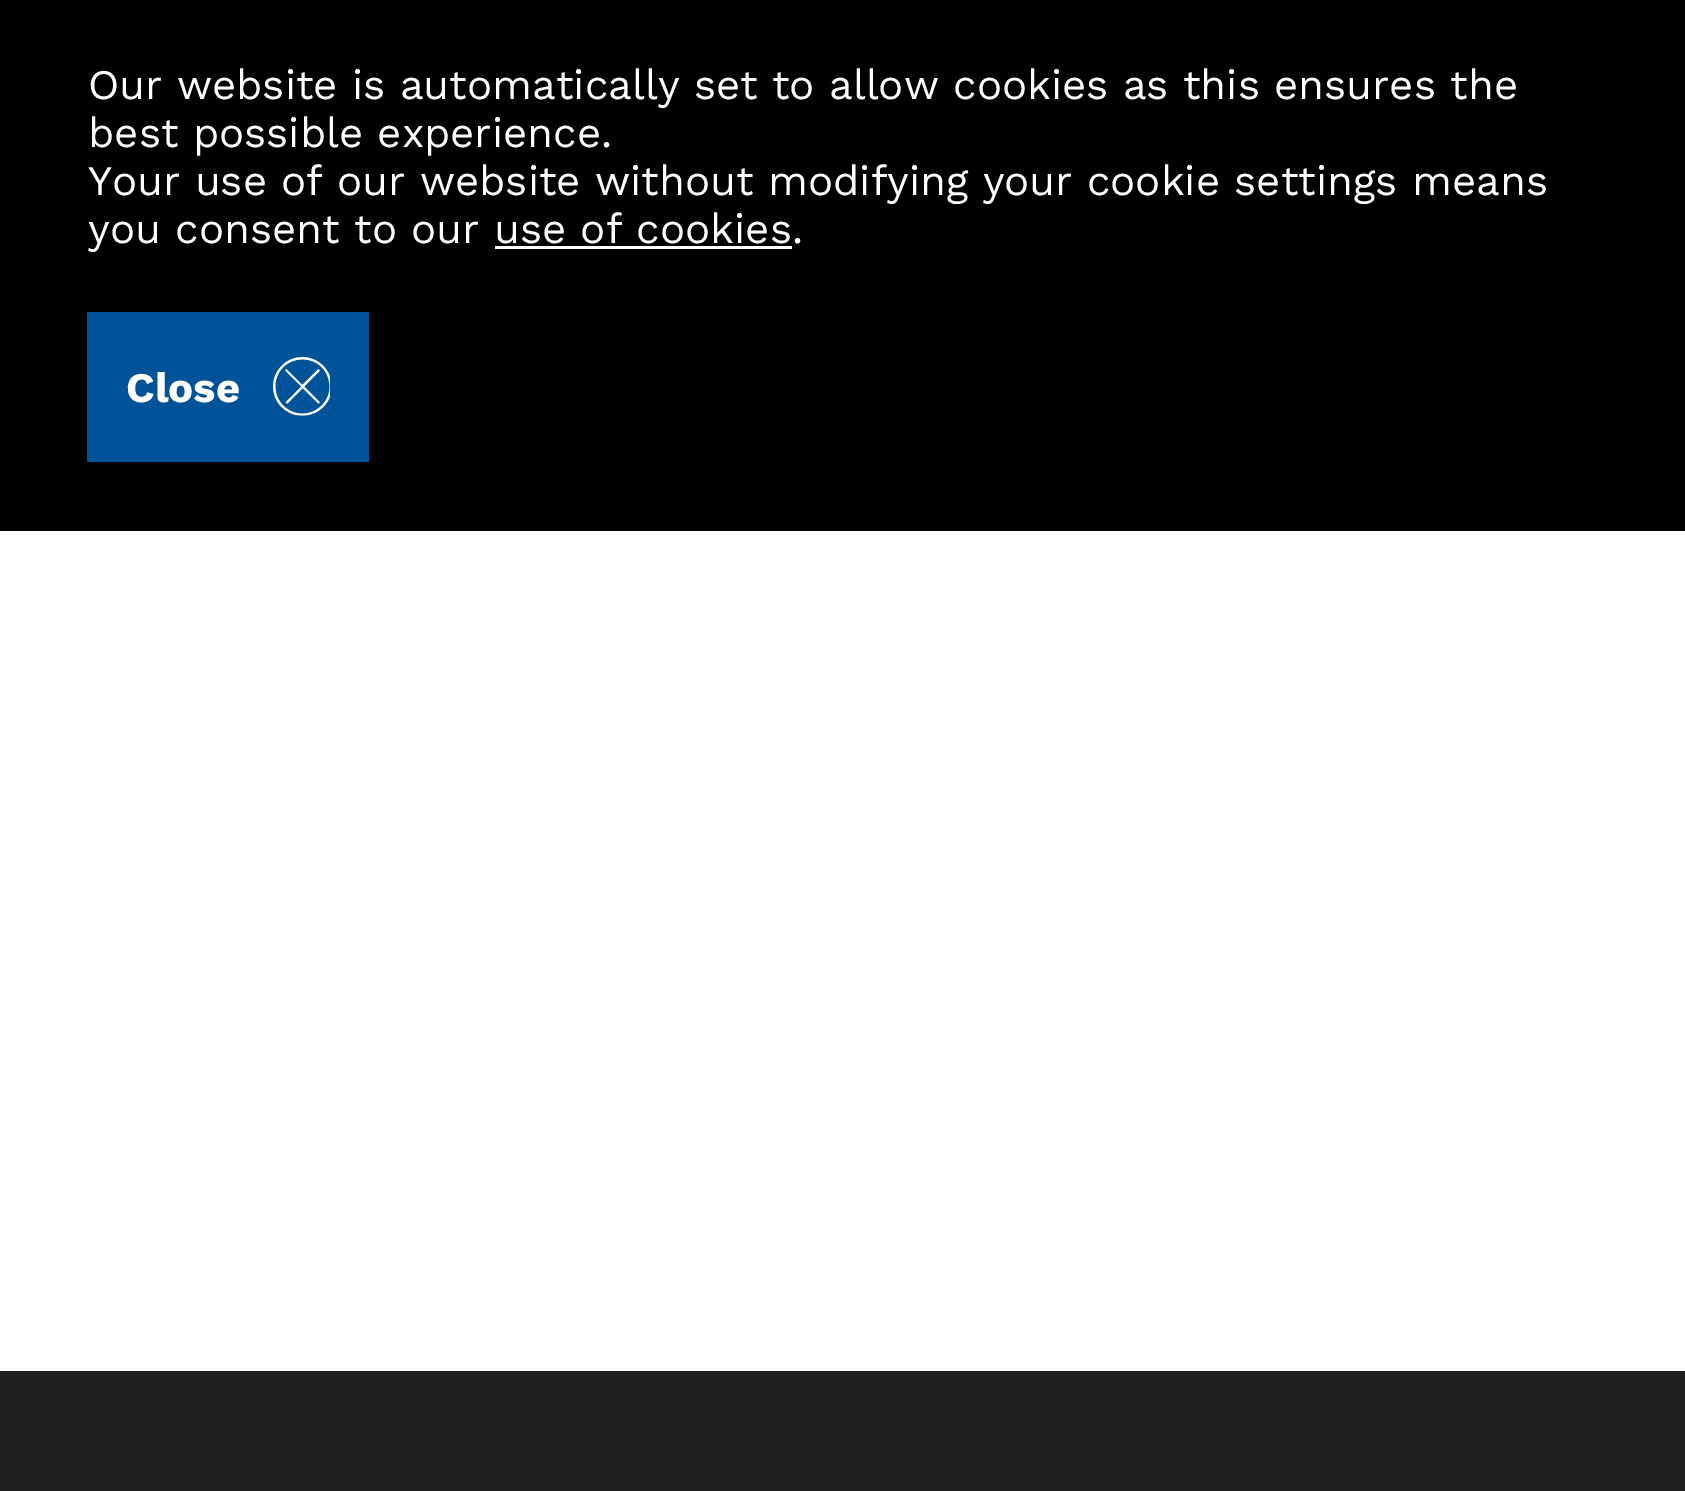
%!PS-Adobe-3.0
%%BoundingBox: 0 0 1685 1491
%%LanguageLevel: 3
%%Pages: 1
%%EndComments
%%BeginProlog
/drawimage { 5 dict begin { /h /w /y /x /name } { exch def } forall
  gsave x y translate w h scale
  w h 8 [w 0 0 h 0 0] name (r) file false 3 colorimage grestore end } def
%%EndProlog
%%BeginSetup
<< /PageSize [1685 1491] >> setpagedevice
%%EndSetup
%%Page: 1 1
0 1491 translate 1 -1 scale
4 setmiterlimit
1 setgray
0 0 1685 1491 rectfill
0 setgray
0 0 1685 531 rectfill
1 setgray
495 246 297 3 rectfill
0 0.325 0.596 setrgbcolor
87 312 282 150 rectfill
(images/1.raw) 273 357 57 59 drawimage
0.125 setgray
0 1371 1685 120 rectfill
/WorkSans-Regular [42 0 0 -42 0 0] selectfont
1 setgray
88 99 moveto (Our website is automatically set to allow cookies as this ensures the) show
88 147 moveto (best possible experience.) show
88 195 moveto (Your use of our website without modifying your cookie settings means) show
88 243 moveto (you consent to our use of cookies.) show
/WorkSans-Bold [42 0 0 -42 0 0] selectfont
126 402 moveto (Close) show
showpage
%%EOF
